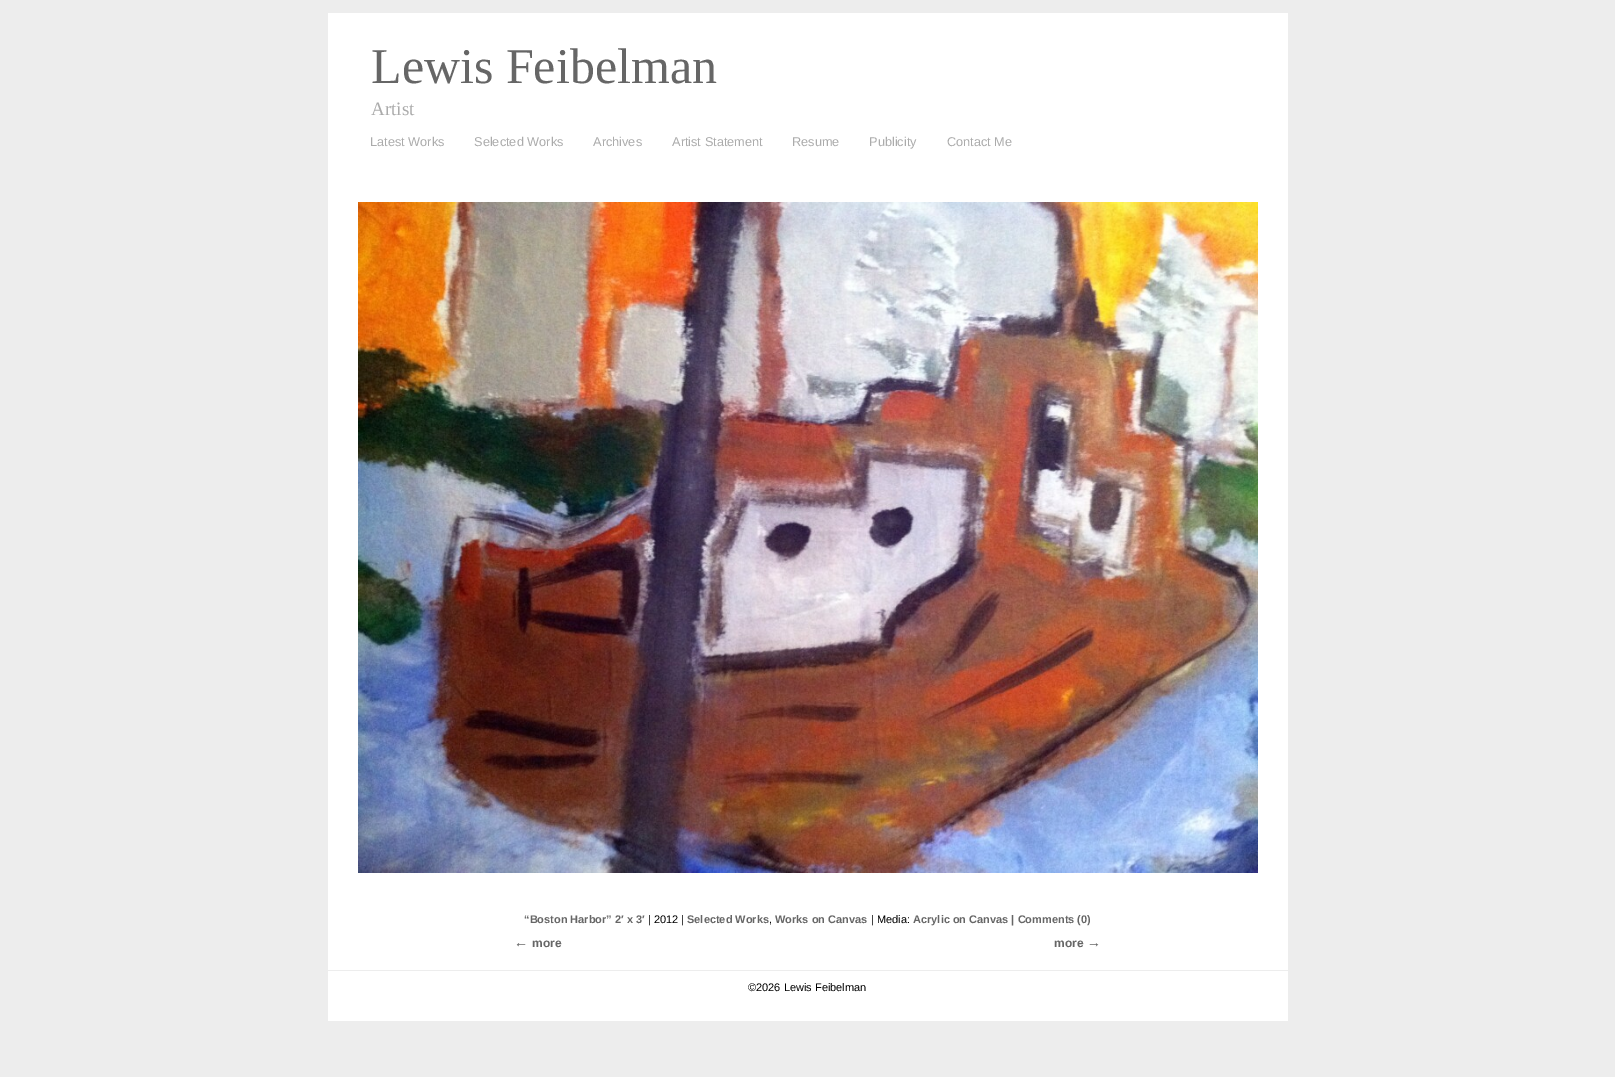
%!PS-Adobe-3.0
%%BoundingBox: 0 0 1615 1077
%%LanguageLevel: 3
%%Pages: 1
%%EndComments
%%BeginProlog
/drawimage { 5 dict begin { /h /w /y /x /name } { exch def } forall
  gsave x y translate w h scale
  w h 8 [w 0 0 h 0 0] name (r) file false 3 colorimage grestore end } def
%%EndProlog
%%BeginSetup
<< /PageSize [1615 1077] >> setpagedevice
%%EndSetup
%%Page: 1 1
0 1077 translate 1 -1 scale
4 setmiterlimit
0.929 setgray
0 0 1615 1077 rectfill
1 setgray
328 13 960 1008 rectfill
(images/1.raw) 358 202 900 671 drawimage
0.929 setgray
328 970 960 1 rectfill
/LiberationSerif-Regular [50 0 0 -50 0 0] selectfont
0.4 setgray
371 83 moveto (Lewis Feibelman) show
/LiberationSerif-Regular [19 0 0 -19 0 0] selectfont
0.671 setgray
371 115 moveto (Artist) show
/LiberationSans-Regular [12.75 0 0 -12.75 0 0] selectfont
370 146 moveto (Latest Works) show
474 146 moveto (Selected Works) show
593 146 moveto (Archives) show
672 146 moveto (Artist Statement) show
792 146 moveto (Resume) show
869 146 moveto (Publicity) show
947 146 moveto (Contact Me) show
/LiberationSans-Bold [11 0 0 -11 0 0] selectfont
0.4 setgray
524 923 moveto (“Boston Harbor” 2′ x 3′) show
/LiberationSans-Regular [11 0 0 -11 0 0] selectfont
0 setgray
648 923 moveto (| 2012 |) show
/LiberationSans-Bold [11 0 0 -11 0 0] selectfont
0.4 setgray
687 923 moveto (Selected Works) show
/LiberationSans-Regular [11 0 0 -11 0 0] selectfont
0 setgray
769 923 moveto (,) show
/LiberationSans-Bold [11 0 0 -11 0 0] selectfont
0.4 setgray
775 923 moveto (Works on Canvas) show
/LiberationSans-Regular [11 0 0 -11 0 0] selectfont
0 setgray
871 923 moveto (| Media:) show
/LiberationSans-Bold [11 0 0 -11 0 0] selectfont
0.4 setgray
913 923 moveto (Acrylic on Canvas | Comments \(0\)) show
/LiberationSans-Bold [14 0 0 -14 0 0] selectfont
514 947 moveto (←) show
/LiberationSans-Bold [12 0 0 -12 0 0] selectfont
532 947 moveto (more) show
1054 947 moveto (more) show
/LiberationSans-Bold [14 0 0 -14 0 0] selectfont
1087 947 moveto (→) show
/LiberationSans-Regular [11 0 0 -11 0 0] selectfont
0 setgray
748 991 moveto (©2026 Lewis Feibelman) show
showpage
%%EOF
